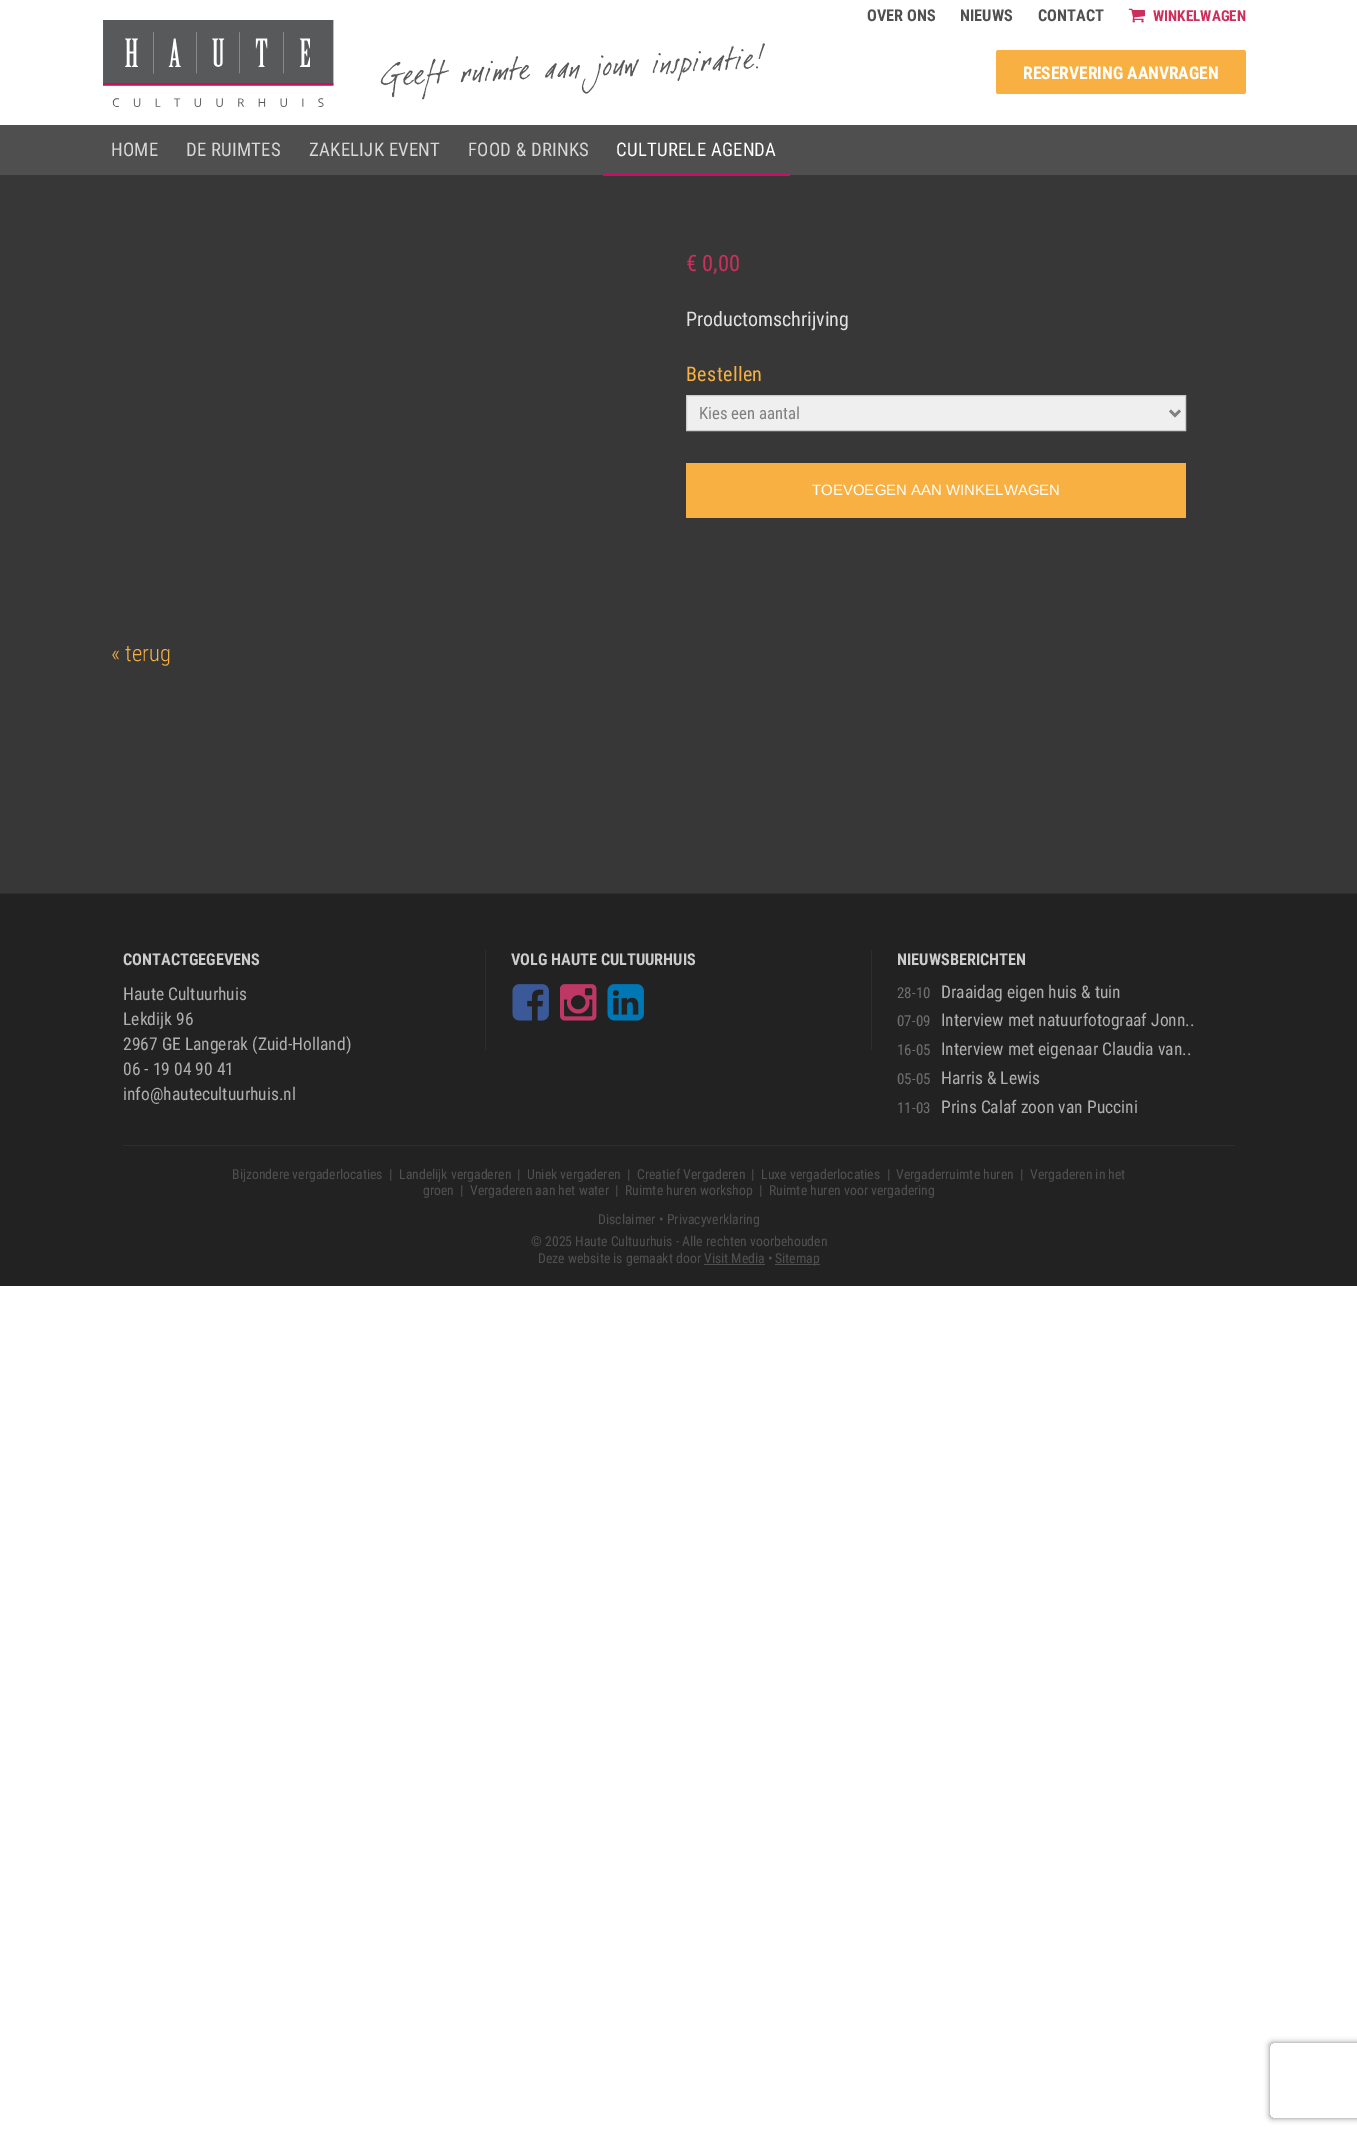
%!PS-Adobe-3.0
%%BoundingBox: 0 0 1357 2135
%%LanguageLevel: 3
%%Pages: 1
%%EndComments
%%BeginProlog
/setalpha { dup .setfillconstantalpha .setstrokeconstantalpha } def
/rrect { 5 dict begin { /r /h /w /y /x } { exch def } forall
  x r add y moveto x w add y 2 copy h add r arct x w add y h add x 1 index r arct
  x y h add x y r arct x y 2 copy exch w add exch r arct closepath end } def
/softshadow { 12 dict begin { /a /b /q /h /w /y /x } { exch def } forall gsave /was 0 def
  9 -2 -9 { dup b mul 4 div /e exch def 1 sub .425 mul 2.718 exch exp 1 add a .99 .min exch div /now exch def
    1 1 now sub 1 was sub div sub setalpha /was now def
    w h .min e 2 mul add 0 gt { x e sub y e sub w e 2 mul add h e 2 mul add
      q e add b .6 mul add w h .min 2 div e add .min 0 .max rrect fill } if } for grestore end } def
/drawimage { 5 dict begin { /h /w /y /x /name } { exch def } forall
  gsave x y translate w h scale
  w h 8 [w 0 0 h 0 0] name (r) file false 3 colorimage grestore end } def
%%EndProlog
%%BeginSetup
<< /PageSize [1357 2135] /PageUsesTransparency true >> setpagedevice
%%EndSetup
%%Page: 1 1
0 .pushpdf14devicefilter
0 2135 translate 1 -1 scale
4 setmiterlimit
1 setgray
0 0 1357 2135 rectfill
(images/1.raw) 1128 8 17 15 drawimage
(images/2.raw) 103 20 662 87 drawimage
0.976 0.69 0.259 setrgbcolor
996 50 250 44 2.5 rrect fill
0.31 0.31 0.314 setrgbcolor
0 125 1357 50 rectfill
0.216 setgray
0 175 1357 718 rectfill
0.804 0.047 0.392 setrgbcolor
603 173 187 3 rectfill
0.937 setgray
newpath 686.5 395.5 moveto 1185.5 395.5 lineto 1185.5 430.5 lineto 686.5 430.5 lineto closepath gsave fill grestore
0.8 setgray
stroke
0.502 setgray
2.5 setlinewidth
newpath 1170 410.5 moveto 1175 415.5 lineto 1180 410.5 lineto stroke
0.976 0.69 0.259 setrgbcolor
686 463 500 55 rectfill
0.133 setgray
0 894 1357 317 rectfill
0.18 setgray
0 893 1357 1 rectfill
871 950 1 100 rectfill
485 950 1 100 rectfill
(images/3.raw) 512 984 37 37 drawimage
(images/4.raw) 560 984 37 37 drawimage
(images/5.raw) 607 984 37 37 drawimage
123 1145 1112 1 rectfill
0.133 setgray
0 1211 1357 75 rectfill
0.314 setgray
775 1264 45 1 rectfill
704 1264 61 1 rectfill
gsave
newpath 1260 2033 moveto 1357 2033 lineto 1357 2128 lineto 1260 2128 lineto closepath 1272.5 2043 moveto 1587.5 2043 lineto 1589 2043 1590 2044 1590 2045.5 curveto 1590 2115.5 lineto 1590 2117 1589 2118 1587.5 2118 curveto 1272.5 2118 lineto 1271 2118 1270 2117 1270 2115.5 curveto 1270 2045.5 lineto 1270 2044 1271 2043 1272.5 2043 curveto closepath eoclip newpath
0.502 setgray
1270 2043 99 75 2.5 3 1 softshadow
grestore
/RobotoCondensed-Bold [16.25 0 0 -16.25 0 0] selectfont
867 21 moveto (OVER ONS) show
960 21 moveto (NIEUWS) show
1038 21 moveto (CONTACT) show
/RobotoCondensed-Bold [15 0 0 -15 0 0] selectfont
0.804 0.184 0.365 setrgbcolor
1153 21 moveto (WINKELWAGEN) show
/RobotoCondensed-Bold [17.5 0 0 -17.5 0 0] selectfont
1 setgray
1023 79 moveto (RESERVERING AANVRAGEN) show
/RobotoCondensed-Regular [18.75 0 0 -18.75 0 0] selectfont
0.847 setgray
111 156 moveto 0.25 0 (HOME) ashow
186 156 moveto 0.25 0 (DE RUIMTES) ashow
309 156 moveto 0.25 0 (ZAKELIJK EVENT) ashow
468 156 moveto 0.25 0 (FOOD & DRINKS) ashow
1 setgray
616 156 moveto 0.25 0 (CULTURELE AGENDA) ashow
/RobotoCondensed-Regular [22.5 0 0 -22.5 0 0] selectfont
0.804 0.184 0.365 setrgbcolor
686 271 moveto (€ 0,00) show
/RobotoCondensed-Regular [20 0 0 -20 0 0] selectfont
0.882 setgray
686 326 moveto (Productomschrijving) show
0.976 0.69 0.259 setrgbcolor
686 381 moveto 0.4 0 (Bestellen) ashow
/RobotoCondensed-Regular [16.75 0 0 -16.75 0 0] selectfont
0.502 setgray
699 419 moveto (Kies een aantal) show
/LiberationSans-Regular [15 0 0 -15 0 0] selectfont
1 setgray
812 495 moveto (TOEVOEGEN AAN WINKELWAGEN) show
/RobotoCondensed-Light [22.5 0 0 -22.5 0 0] selectfont
0.976 0.69 0.259 setrgbcolor
111 661 moveto (« terug) show
/RobotoCondensed-Bold [16.25 0 0 -16.25 0 0] selectfont
0.8 setgray
123 965 moveto (CONTACTGEGEVENS) show
/RobotoCondensed-Regular [17.5 0 0 -17.5 0 0] selectfont
0.686 setgray
123 1000 moveto (Haute Cultuurhuis) show
123 1025 moveto (Lekdijk 96) show
123 1050 moveto (2967 GE Langerak \(Zuid-Holland\)) show
123 1075 moveto (06 - 19 04 90 41) show
123 1100 moveto (info@hautecultuurhuis.nl) show
/RobotoCondensed-Bold [16.25 0 0 -16.25 0 0] selectfont
0.8 setgray
511 965 moveto (VOLG HAUTE CULTUURHUIS) show
897 965 moveto (NIEUWSBERICHTEN) show
/RobotoCondensed-Regular [15 0 0 -15 0 0] selectfont
0.435 setgray
897 998 moveto (28-10) show
/RobotoCondensed-Regular [17.5 0 0 -17.5 0 0] selectfont
0.686 setgray
941 998 moveto (Draaidag eigen huis & tuin) show
/RobotoCondensed-Regular [15 0 0 -15 0 0] selectfont
0.435 setgray
897 1026 moveto (07-09) show
/RobotoCondensed-Regular [17.5 0 0 -17.5 0 0] selectfont
0.686 setgray
941 1026 moveto (Interview met natuurfotograaf Jonn..) show
/RobotoCondensed-Regular [15 0 0 -15 0 0] selectfont
0.435 setgray
897 1055 moveto (16-05) show
/RobotoCondensed-Regular [17.5 0 0 -17.5 0 0] selectfont
0.686 setgray
941 1055 moveto (Interview met eigenaar Claudia van..) show
/RobotoCondensed-Regular [15 0 0 -15 0 0] selectfont
0.435 setgray
897 1084 moveto (05-05) show
/RobotoCondensed-Regular [17.5 0 0 -17.5 0 0] selectfont
0.686 setgray
941 1084 moveto (Harris & Lewis) show
/RobotoCondensed-Regular [15 0 0 -15 0 0] selectfont
0.435 setgray
897 1113 moveto (11-03) show
/RobotoCondensed-Regular [17.5 0 0 -17.5 0 0] selectfont
0.686 setgray
941 1113 moveto (Prins Calaf zoon van Puccini) show
/RobotoCondensed-Regular [13.75 0 0 -13.75 0 0] selectfont
0.314 setgray
232 1179 moveto (Bijzondere vergaderlocaties) show
389 1179 moveto (|) show
399 1179 moveto (Landelijk vergaderen) show
517 1179 moveto (|) show
527 1179 moveto (Uniek vergaderen) show
627 1179 moveto (|) show
637 1179 moveto (Creatief Vergaderen) show
751 1179 moveto (|) show
761 1179 moveto (Luxe vergaderlocaties) show
887 1179 moveto (|) show
896 1179 moveto (Vergaderruimte huren) show
1020 1179 moveto (|) show
1030 1179 moveto (Vergaderen in het) show
423 1195 moveto (groen) show
460 1195 moveto (|) show
470 1195 moveto (Vergaderen aan het water) show
615 1195 moveto (|) show
625 1195 moveto (Ruimte huren workshop) show
759 1195 moveto (|) show
769 1195 moveto (Ruimte huren voor vergadering) show
598 1224 moveto (Disclaimer) show
659 1224 moveto (• Privacyverklaring) show
531 1246 moveto (© 2025 Haute Cultuurhuis - Alle rechten voorbehouden) show
538 1263 moveto (Deze website is gemaakt door Visit Media) show
768 1263 moveto (•) show
775 1263 moveto (Sitemap) show
.poppdf14devicefilter showpage
%%EOF
